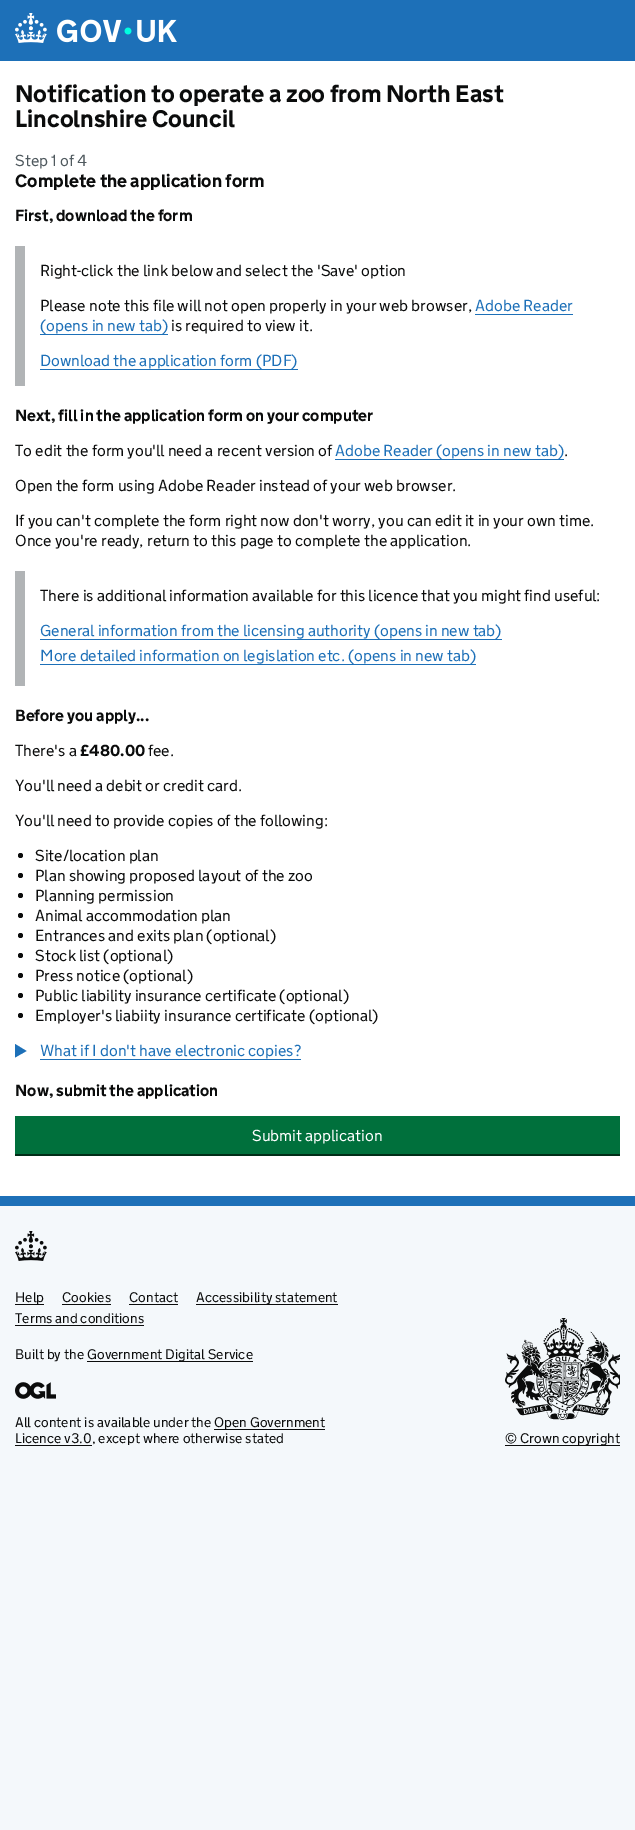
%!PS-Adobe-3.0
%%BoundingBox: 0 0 635 1830
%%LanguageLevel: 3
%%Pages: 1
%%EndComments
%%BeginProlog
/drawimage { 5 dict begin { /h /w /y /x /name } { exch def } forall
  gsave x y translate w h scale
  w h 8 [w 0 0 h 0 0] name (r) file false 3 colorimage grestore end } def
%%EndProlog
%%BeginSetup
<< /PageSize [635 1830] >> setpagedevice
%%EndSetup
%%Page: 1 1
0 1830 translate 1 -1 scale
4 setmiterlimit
0.957 0.973 0.984 setrgbcolor
0 0 635 1830 rectfill
1 setgray
0 61 635 1135 rectfill
0.114 0.439 0.722 setrgbcolor
0 0 635 61 rectfill
(images/1.raw) 15 13 162 30 drawimage
0.694 0.706 0.714 setrgbcolor
15 246 10 140 rectfill
0.114 0.439 0.722 setrgbcolor
475 314 98 1 rectfill
40 334 128 1 rectfill
40 369 258 1 rectfill
335 459 229 1 rectfill
0.694 0.706 0.714 setrgbcolor
15 571 10 115 rectfill
0.114 0.439 0.722 setrgbcolor
40 639 462 1 rectfill
40 664 436 1 rectfill
0.043 0.047 0.047 setrgbcolor
newpath 20.5 855.5 2.5 0 360 arc closepath fill
newpath 20.5 875.5 2.5 0 360 arc closepath fill
newpath 20.5 895.5 2.5 0 360 arc closepath fill
newpath 20.5 915.5 2.5 0 360 arc closepath fill
newpath 20.5 935.5 2.5 0 360 arc closepath fill
newpath 20.5 955.5 2.5 0 360 arc closepath fill
newpath 20.5 975.5 2.5 0 360 arc closepath fill
newpath 20.5 995.5 2.5 0 360 arc closepath fill
newpath 20.5 1015.5 2.5 0 360 arc closepath fill
0.114 0.439 0.722 setrgbcolor
newpath 15 1044 moveto 15 1057.5 lineto 26.5 1051 lineto closepath fill
40 1059 261 1 rectfill
0 0.176 0.094 setrgbcolor
15 1154 605 2 rectfill
0 0.439 0.235 setrgbcolor
15 1116 605 38 rectfill
0.114 0.439 0.722 setrgbcolor
0 1196 635 10 rectfill
(images/2.raw) 15 1231 32 30 drawimage
0.043 0.047 0.047 setrgbcolor
15 1304 29 1 rectfill
62 1304 49 1 rectfill
129 1304 49 1 rectfill
196 1304 142 1 rectfill
15 1325 129 1 rectfill
87 1361 166 1 rectfill
(images/3.raw) 15 1382 41 17 drawimage
214 1429 111 1 rectfill
15 1445 77 1 rectfill
(images/4.raw) 505 1318 115 102 drawimage
505 1445 115 1 rectfill
/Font-Bold [24 0 0 -24 0 0] selectfont
15 102 moveto (Notification to operate a zoo from North East) show
15 127 moveto (Lincolnshire Council) show
/Font-Light [16 0 0 -16 0 0] selectfont
0.314 0.353 0.373 setrgbcolor
15 166 moveto (Step 1 of 4) show
/Font-Bold [18 0 0 -18 0 0] selectfont
0.043 0.047 0.047 setrgbcolor
15 187 moveto (Complete the application form) show
/Font-Bold [16 0 0 -16 0 0] selectfont
15 221 moveto (First, download the form) show
/Font-Light [16 0 0 -16 0 0] selectfont
40 276 moveto (Right-click the link below and select the 'Save' option) show
40 311 moveto (Please note this file will not open properly in your web browser,) show
0.114 0.439 0.722 setrgbcolor
475 311 moveto (Adobe Reader) show
40 331 moveto (\(opens in new tab\)) show
0.043 0.047 0.047 setrgbcolor
171 331 moveto (is required to view it.) show
0.114 0.439 0.722 setrgbcolor
40 366 moveto (Download the application form \(PDF\)) show
/Font-Bold [16 0 0 -16 0 0] selectfont
0.043 0.047 0.047 setrgbcolor
15 421 moveto (Next, fill in the application form on your computer) show
/Font-Light [16 0 0 -16 0 0] selectfont
15 456 moveto (To edit the form you'll need a recent version of) show
0.114 0.439 0.722 setrgbcolor
335 456 moveto (Adobe Reader \(opens in new tab\)) show
0.043 0.047 0.047 setrgbcolor
564 456 moveto (.) show
15 491 moveto (Open the form using Adobe Reader instead of your web browser.) show
15 526 moveto (If you can't complete the form right now don't worry, you can edit it in your own time.) show
15 546 moveto (Once you're ready, return to this page to complete the application.) show
40 601 moveto (There is additional information available for this licence that you might find useful:) show
0.114 0.439 0.722 setrgbcolor
40 636 moveto (General information from the licensing authority \(opens in new tab\)) show
40 661 moveto (More detailed information on legislation etc. \(opens in new tab\)) show
/Font-Bold [16 0 0 -16 0 0] selectfont
0.043 0.047 0.047 setrgbcolor
15 721 moveto (Before you apply...) show
/Font-Light [16 0 0 -16 0 0] selectfont
15 756 moveto (There's a) show
/Font-Bold [16 0 0 -16 0 0] selectfont
80 756 moveto (£480.00) show
/Font-Light [16 0 0 -16 0 0] selectfont
148 756 moveto (fee.) show
15 791 moveto (You'll need a debit or credit card.) show
15 826 moveto (You'll need to provide copies of the following:) show
35 861 moveto (Site/location plan) show
35 881 moveto (Plan showing proposed layout of the zoo) show
35 901 moveto (Planning permission) show
35 921 moveto (Animal accommodation plan) show
35 941 moveto (Entrances and exits plan \(optional\)) show
35 961 moveto (Stock list \(optional\)) show
35 981 moveto (Press notice \(optional\)) show
35 1001 moveto (Public liability insurance certificate \(optional\)) show
35 1021 moveto (Employer's liabiity insurance certificate \(optional\)) show
0.114 0.439 0.722 setrgbcolor
40 1056 moveto (What if I don't have electronic copies?) show
/Font-Bold [16 0 0 -16 0 0] selectfont
0.043 0.047 0.047 setrgbcolor
15 1096 moveto (Now, submit the application) show
/Font-Light [16 0 0 -16 0 0] selectfont
1 setgray
252 1141 moveto (Submit application) show
/Font-Light [14 0 0 -14 0 0] selectfont
0.043 0.047 0.047 setrgbcolor
15 1302 moveto (Help) show
62 1302 moveto (Cookies) show
129 1302 moveto (Contact) show
196 1302 moveto (Accessibility statement) show
15 1323 moveto (Terms and conditions) show
15 1359 moveto (Built by the) show
87 1359 moveto (Government Digital Service) show
15 1427 moveto (All content is available under the) show
214 1427 moveto (Open Government) show
15 1443 moveto (Licence v3.0, except where otherwise stated) show
505 1443 moveto (© Crown copyright) show
showpage
%%EOF
